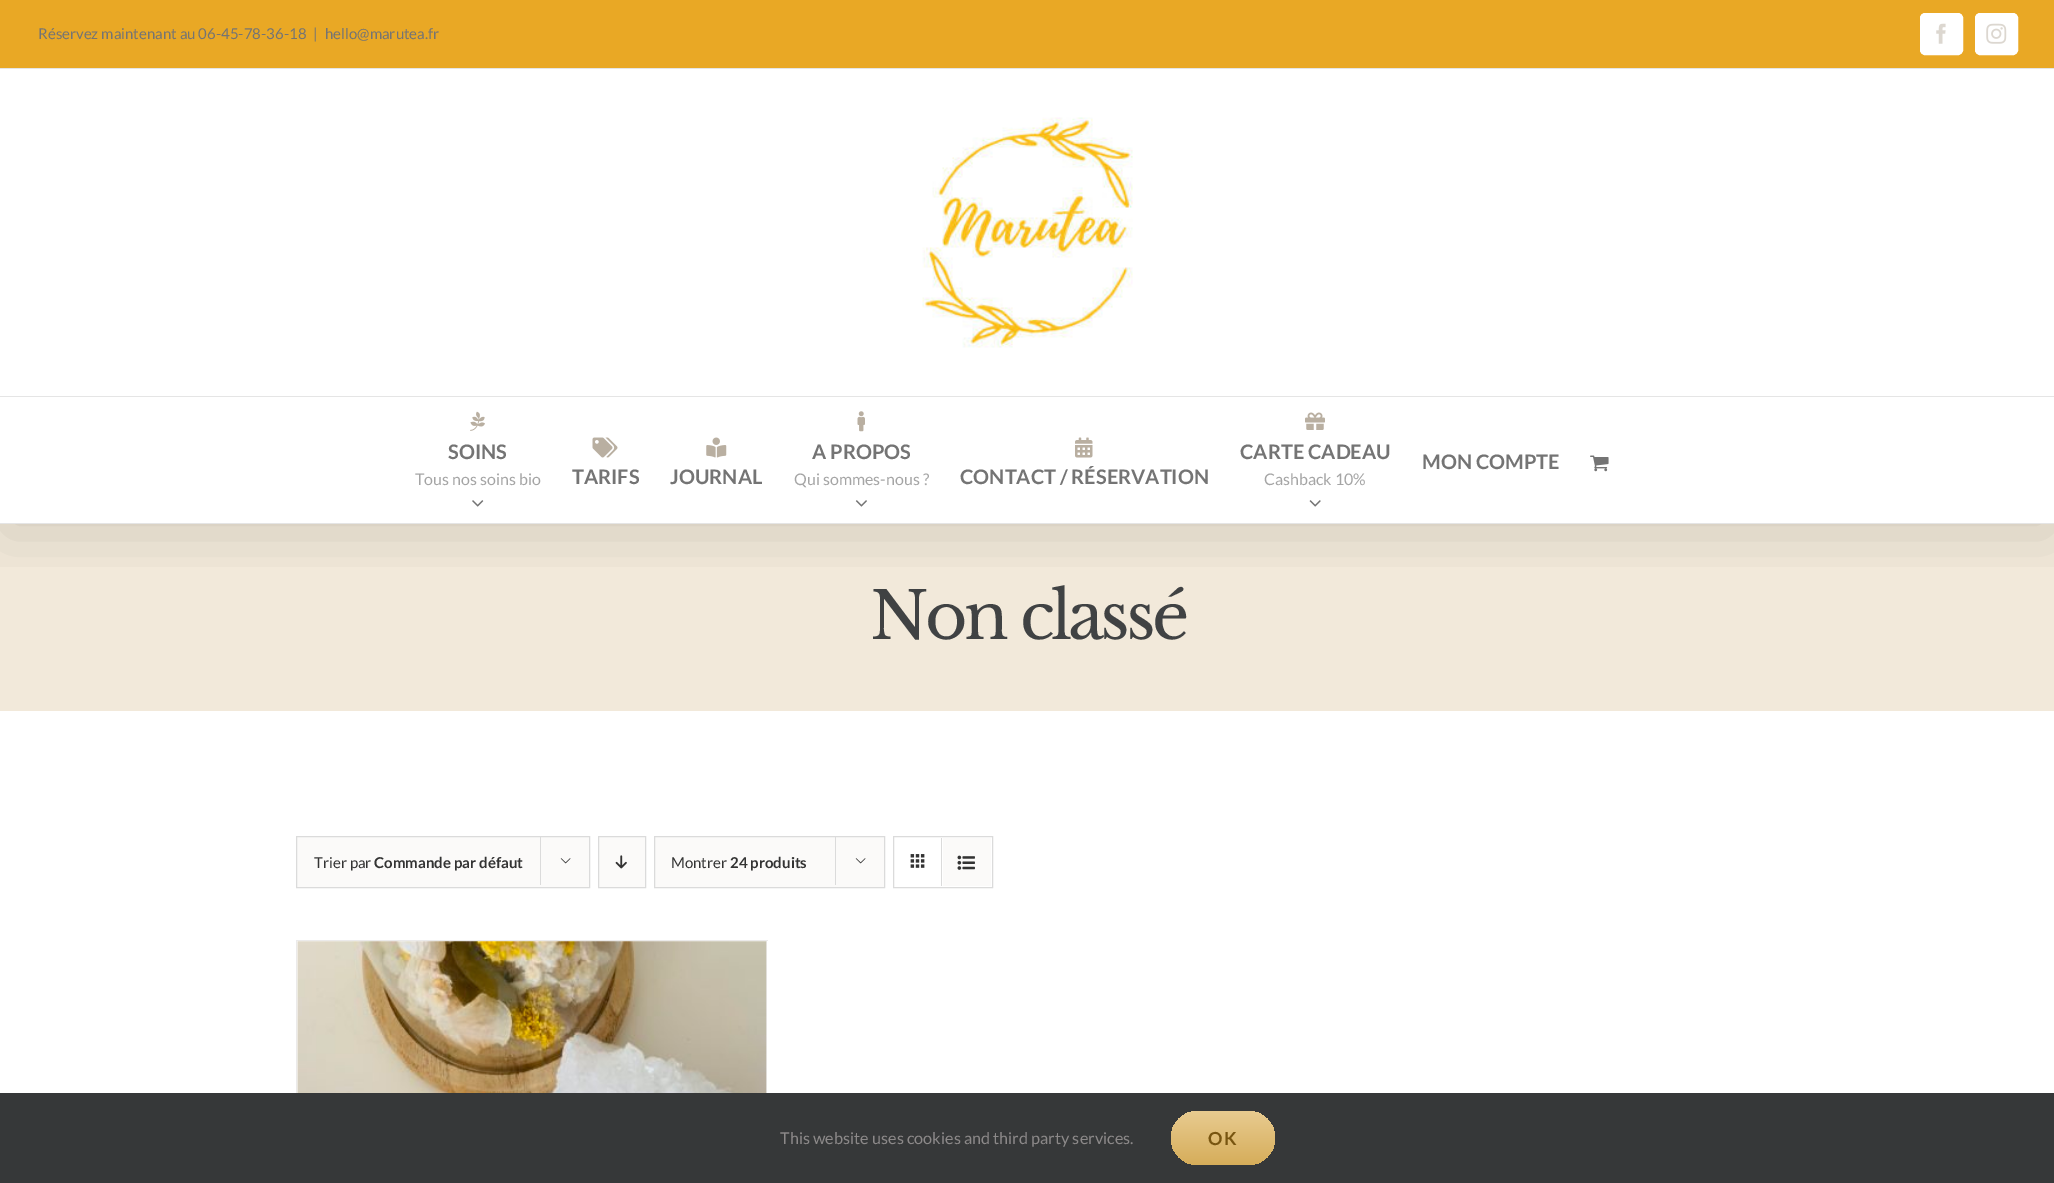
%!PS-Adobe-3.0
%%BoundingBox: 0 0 2054 1183
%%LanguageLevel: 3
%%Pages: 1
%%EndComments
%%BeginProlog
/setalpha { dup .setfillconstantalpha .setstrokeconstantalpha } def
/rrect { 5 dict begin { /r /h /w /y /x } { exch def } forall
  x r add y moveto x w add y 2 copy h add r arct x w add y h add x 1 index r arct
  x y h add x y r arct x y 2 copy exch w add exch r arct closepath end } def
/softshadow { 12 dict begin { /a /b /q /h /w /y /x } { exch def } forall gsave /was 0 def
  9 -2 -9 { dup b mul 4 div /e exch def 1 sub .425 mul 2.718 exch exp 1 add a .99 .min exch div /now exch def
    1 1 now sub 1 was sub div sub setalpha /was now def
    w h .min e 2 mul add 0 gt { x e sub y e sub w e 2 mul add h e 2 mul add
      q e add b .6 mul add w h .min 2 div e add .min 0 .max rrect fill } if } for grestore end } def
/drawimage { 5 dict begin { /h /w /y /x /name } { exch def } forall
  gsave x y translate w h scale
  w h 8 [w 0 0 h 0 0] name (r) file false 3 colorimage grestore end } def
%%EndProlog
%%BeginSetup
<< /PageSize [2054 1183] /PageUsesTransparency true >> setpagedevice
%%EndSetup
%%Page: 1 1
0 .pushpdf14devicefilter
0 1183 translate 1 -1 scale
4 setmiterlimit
1 setgray
0 0 2054 1183 rectfill
0.949 0.914 0.855 setrgbcolor
0 524 2054 187 rectfill
gsave
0 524 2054 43 rectclip
0 setgray
3 15 2050 519 0 31 0.14 softshadow
grestore
0.914 0.659 0.145 setrgbcolor
0 0 2054 68 rectfill
0.898 setgray
0 68 2054 1 rectfill
1 setgray
1920.5 13.5 42 41 4.5 rrect gsave fill grestore
stroke
(images/1.raw) 1936 23 10 21 drawimage
1975.5 13.5 42 41 4.5 rrect gsave fill grestore
stroke
(images/2.raw) 1986 23 21 21 drawimage
0.898 setgray
0 396 2054 1 rectfill
(images/3.raw) 922 117 211 231 drawimage
0 523 2054 1 rectfill
(images/4.raw) 470 411 15 20 drawimage
(images/5.raw) 472 500 12 7 drawimage
(images/6.raw) 857 411 8 21 drawimage
(images/7.raw) 855 500 12 7 drawimage
(images/8.raw) 1305 412 20 18 drawimage
(images/9.raw) 1309 500 12 7 drawimage
(images/10.raw) 1590 455 19 17 drawimage
(images/11.raw) 592 437 26 21 drawimage
(images/12.raw) 706 437 21 21 drawimage
(images/13.raw) 1075 437 18 21 drawimage
0.984 0.98 0.976 setrgbcolor
newpath 296.5 836.5 moveto 589.5 836.5 lineto 589.5 887.5 lineto 296.5 887.5 lineto closepath gsave fill grestore
0.859 setgray
stroke
540 836 1 49 rectfill
(images/14.raw) 560 858 11 6 drawimage
0.984 0.98 0.976 setrgbcolor
newpath 598.5 836.5 moveto 645.5 836.5 lineto 645.5 887.5 lineto 598.5 887.5 lineto closepath gsave fill grestore
0.859 setgray
stroke
(images/15.raw) 615 855 12 14 drawimage
0.984 0.98 0.976 setrgbcolor
newpath 654.5 836.5 moveto 884.5 836.5 lineto 884.5 887.5 lineto 654.5 887.5 lineto closepath gsave fill grestore
0.859 setgray
stroke
835 836 1 49 rectfill
(images/14.raw) 855 858 11 6 drawimage
893.5 836.5 99 51 rectstroke
941 838 1 48 rectfill
(images/16.raw) 910 854 15 14 drawimage
0.984 0.98 0.976 setrgbcolor
943 838 48 48 rectfill
(images/17.raw) 957 855 18 15 drawimage
0.922 0.918 0.918 setrgbcolor
296 940 472 1 rectfill
766 940 1 153 rectfill
296 940 1 153 rectfill
(images/18.raw) 297 941 470 152 drawimage
0.212 0.22 0.224 setrgbcolor
0 1093 2054 90 rectfill
gsave 1171 1111 104 54 27 rrect clip newpath
<< /ShadingType 2 /ColorSpace /DeviceRGB /Coords [1223 1111 1223 1165] /Extend [true true] /Function << /FunctionType 2 /Domain [0 1] /C0 [0.91 0.796 0.565] /C1 [0.839 0.678 0.353] /N 1 >> >> shfill grestore
/Lato-Regular [15 0 0 -15 0 0] selectfont
0.455 setgray
38 39 moveto (Réservez maintenant au 06-45-78-36-18) show
313 39 moveto (|) show
325 39 moveto (hello@marutea.fr) show
/Lato-Bold [20 0 0 -20 0 0] selectfont
448 459 moveto (SOINS) show
/Lato-Regular [16 0 0 -16 0 0] selectfont
0.647 setgray
415 485 moveto (Tous nos soins bio) show
/Lato-Bold [20 0 0 -20 0 0] selectfont
0.455 setgray
812 459 moveto (A PROPOS) show
/Lato-Regular [16 0 0 -16 0 0] selectfont
0.647 setgray
794 485 moveto (Qui sommes-nous ?) show
/Lato-Bold [20 0 0 -20 0 0] selectfont
0.455 setgray
1240 459 moveto (CARTE CADEAU) show
/Lato-Regular [16 0 0 -16 0 0] selectfont
0.647 setgray
1264 485 moveto (Cashback 10%) show
/Lato-Bold [20 0 0 -20 0 0] selectfont
0.455 setgray
1422 469 moveto (MON COMPTE) show
572 484 moveto (TARIFS) show
670 484 moveto (JOURNAL) show
960 484 moveto (CONTACT / RÉSERVATION) show
/LibreBaskerville-Regular [65 0 0 -65 0 0] selectfont
0.251 0.259 0.263 setrgbcolor
870 639 moveto -3.75 0 (Non classé) ashow
/Lato-Regular [15 0 0 -15 0 0] selectfont
0.2 setgray
314 868 moveto (Trier par) show
/Lato-Bold [15 0 0 -15 0 0] selectfont
374 868 moveto (Commande par défaut) show
/Lato-Regular [15 0 0 -15 0 0] selectfont
671 868 moveto (Montrer) show
/Lato-Bold [15 0 0 -15 0 0] selectfont
730 868 moveto (24 produits) show
/Lato-Regular [16.25 0 0 -16.25 0 0] selectfont
0.549 0.537 0.537 setrgbcolor
780 1144 moveto (This website uses cookies and third party services.) show
/Lato-Bold [18 0 0 -18 0 0] selectfont
0.471 0.333 0.063 setrgbcolor
1208 1145 moveto 2 0 (OK) ashow
.poppdf14devicefilter showpage
%%EOF
